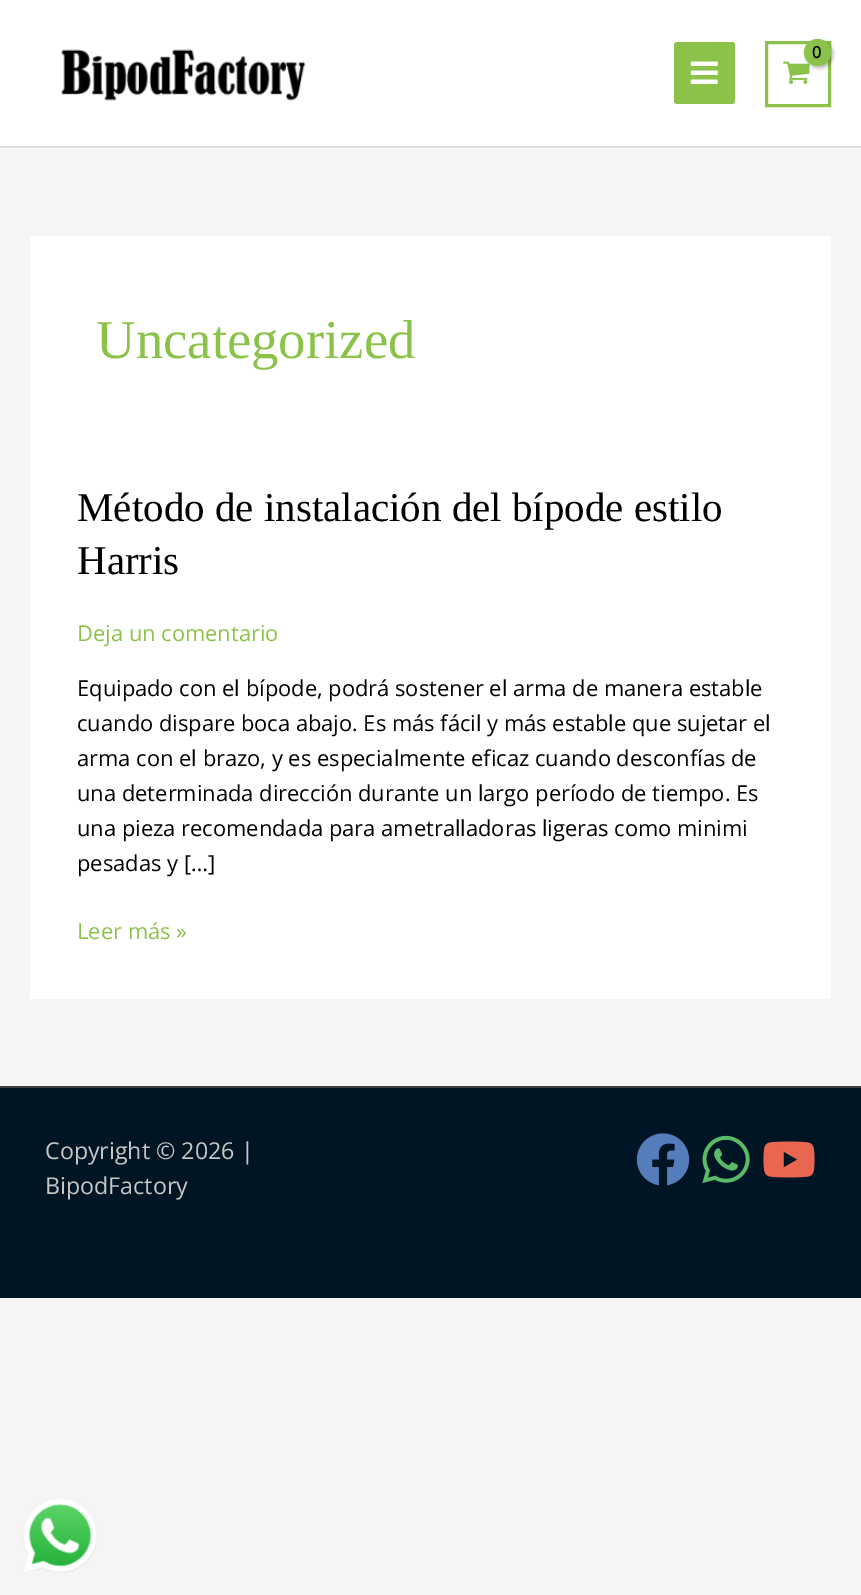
%!PS-Adobe-3.0
%%BoundingBox: 0 0 861 1595
%%LanguageLevel: 3
%%Pages: 1
%%EndComments
%%BeginProlog
/setalpha { dup .setfillconstantalpha .setstrokeconstantalpha } def
/rrect { 5 dict begin { /r /h /w /y /x } { exch def } forall
  x r add y moveto x w add y 2 copy h add r arct x w add y h add x 1 index r arct
  x y h add x y r arct x y 2 copy exch w add exch r arct closepath end } def
/softshadow { 12 dict begin { /a /b /q /h /w /y /x } { exch def } forall gsave /was 0 def
  9 -2 -9 { dup b mul 4 div /e exch def 1 sub .425 mul 2.718 exch exp 1 add a .99 .min exch div /now exch def
    1 1 now sub 1 was sub div sub setalpha /was now def
    w h .min e 2 mul add 0 gt { x e sub y e sub w e 2 mul add h e 2 mul add
      q e add b .6 mul add w h .min 2 div e add .min 0 .max rrect fill } if } for grestore end } def
/drawimage { 5 dict begin { /h /w /y /x /name } { exch def } forall
  gsave x y translate w h scale
  w h 8 [w 0 0 h 0 0] name (r) file false 3 colorimage grestore end } def
%%EndProlog
%%BeginSetup
<< /PageSize [861 1595] /PageUsesTransparency true >> setpagedevice
%%EndSetup
%%Page: 1 1
0 .pushpdf14devicefilter
0 1595 translate 1 -1 scale
4 setmiterlimit
0.961 setgray
0 0 861 1595 rectfill
1 setgray
0 0 861 146 rectfill
0.867 setgray
0 146 861 2 rectfill
(images/1.raw) 61 49 245 52 drawimage
0.545 0.765 0.29 setrgbcolor
674 42 61 62 3 rrect fill
(images/2.raw) 690 61 28 23 drawimage
3 setlinewidth
766.5 42.5 63 63 rectstroke
(images/3.raw) 783 61 27 23 drawimage
0 setgray
806 41 27 27 13.5 2 0.3 softshadow
0.545 0.765 0.29 setrgbcolor
newpath 817.5 52.5 13.5 0 360 arc closepath fill
1 setgray
30 236 801 763 rectfill
0 0.082 0.141 setrgbcolor
0 1088 861 210 rectfill
0.247 setgray
0 1086 861 2 rectfill
(images/4.raw) 636 1133 54 53 drawimage
(images/5.raw) 702 1135 48 49 drawimage
(images/6.raw) 763 1141 52 37 drawimage
(images/7.raw) 22 1498 76 76 drawimage
/OpenSans-Bold [16 0 0 -16 0 0] selectfont
0 setgray
812 58 moveto -1 0 (0) ashow
/LiberationSerif-Regular [54.75 0 0 -54.75 0 0] selectfont
0.545 0.765 0.29 setrgbcolor
96 358 moveto (Uncategorized) show
/LiberationSerif-Regular [41 0 0 -41 0 0] selectfont
0 setgray
77 521 moveto (Método de instalación del bípode estilo) show
77 574 moveto (Harris) show
/OpenSans-Regular [21.9 0 0 -21.9 0 0] selectfont
0.545 0.765 0.29 setrgbcolor
77 641 moveto (Deja un comentario) show
0 setgray
77 696 moveto (Equipado con el bípode, podrá sostener el arma de manera estable) show
77 731 moveto (cuando dispare boca abajo. Es más fácil y más estable que sujetar el) show
77 766 moveto (arma con el brazo, y es especialmente eficaz cuando desconfías de) show
77 801 moveto (una determinada dirección durante un largo período de tiempo. Es) show
77 836 moveto (una pieza recomendada para ametralladoras ligeras como minimi) show
77 871 moveto (pesadas y […]) show
0.545 0.765 0.29 setrgbcolor
77 939 moveto (Leer más ») show
/OpenSans-Regular [23.25 0 0 -23.25 0 0] selectfont
0.776 setgray
45 1159 moveto (Copyright © 2026 |) show
45 1194 moveto (BipodFactory) show
.poppdf14devicefilter showpage
%%EOF
